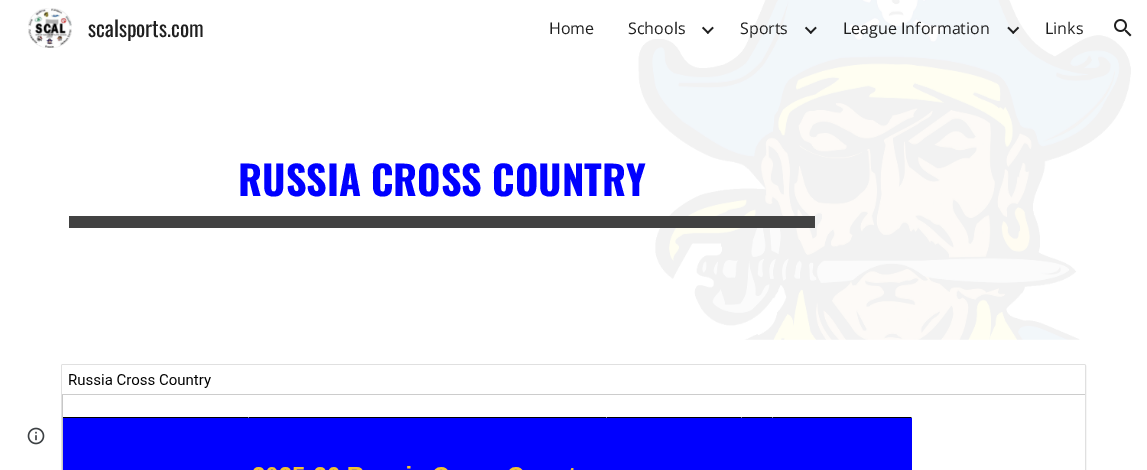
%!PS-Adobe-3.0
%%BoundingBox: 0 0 1147 470
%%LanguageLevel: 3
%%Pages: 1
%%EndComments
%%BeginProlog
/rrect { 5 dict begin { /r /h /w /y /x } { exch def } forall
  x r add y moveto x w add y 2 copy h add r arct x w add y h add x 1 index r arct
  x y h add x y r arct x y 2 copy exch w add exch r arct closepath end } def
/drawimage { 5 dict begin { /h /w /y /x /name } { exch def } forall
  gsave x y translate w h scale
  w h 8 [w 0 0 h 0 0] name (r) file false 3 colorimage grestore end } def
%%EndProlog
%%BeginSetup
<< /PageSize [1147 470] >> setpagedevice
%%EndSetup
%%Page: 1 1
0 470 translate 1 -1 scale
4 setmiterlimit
1 setgray
0 0 1147 470 rectfill
(images/1.raw) 28 8 44 40 drawimage
(images/6.raw) 638 0 493 340 drawimage
(images/2.raw) 702 26 12 8 drawimage
(images/3.raw) 804 26 13 8 drawimage
(images/4.raw) 1007 26 13 8 drawimage
(images/5.raw) 1114 19 18 18 drawimage
0.259 setgray
69 216 746 12 rectfill
0.878 setgray
61.5 364.5 1024 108 1.5 rrect stroke
(images/7.raw) 62 365 1023 105 drawimage
(images/8.raw) 27 427 18 18 drawimage
/Oswald-Regular [21.5 0 0 -21.5 0 0] selectfont
0.122 setgray
88 37 moveto (scalsports.com) show
/OpenSans-Regular [16 0 0 -16 0 0] selectfont
549 34 moveto (Home) show
628 34 moveto (Schools) show
740 34 moveto (Sports) show
843 34 moveto (League Information) show
1045 34 moveto (Links) show
/Oswald-Bold [40 0 0 -40 0 0] selectfont
0 0 1 setrgbcolor
238 196 moveto (RUSSIA CROSS COUNTRY) show
showpage
%%EOF
